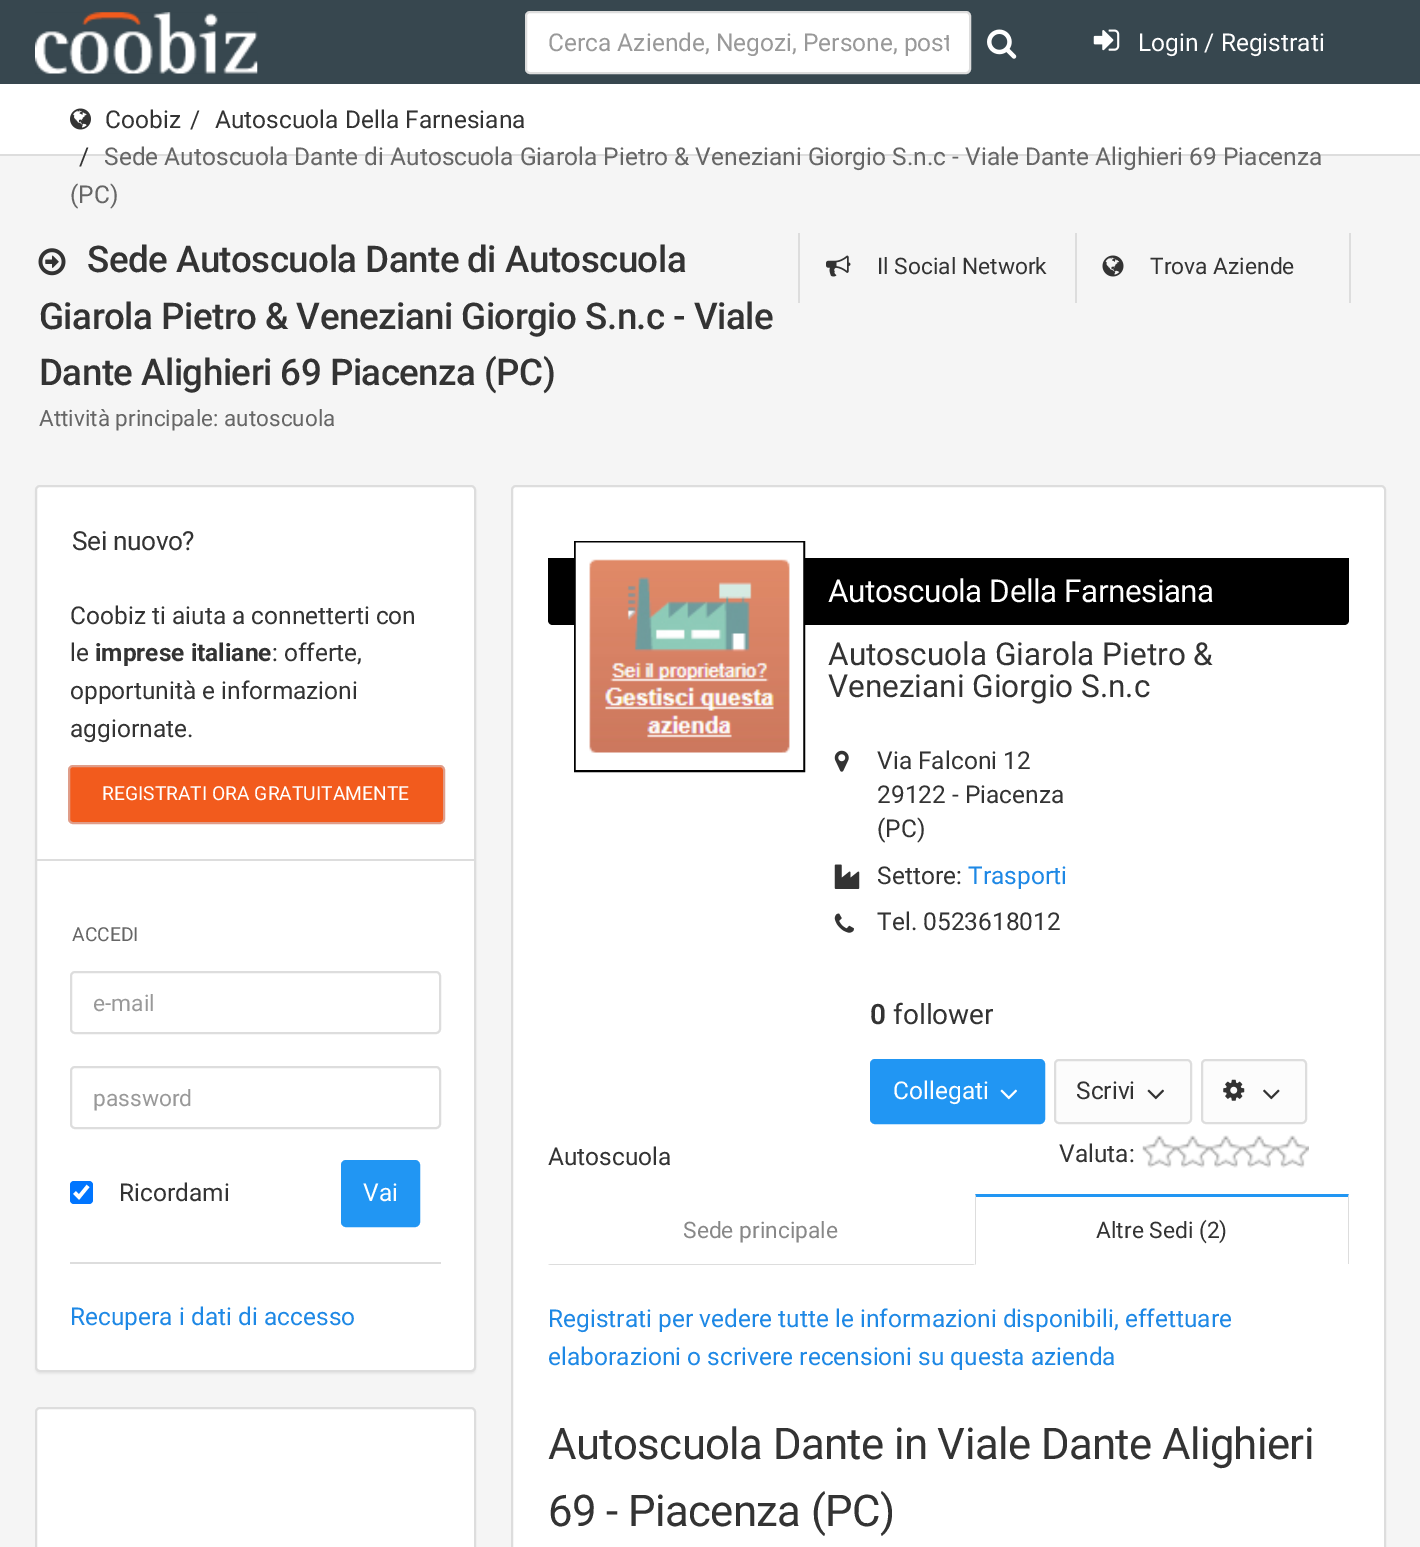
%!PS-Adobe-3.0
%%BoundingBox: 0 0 1420 1547
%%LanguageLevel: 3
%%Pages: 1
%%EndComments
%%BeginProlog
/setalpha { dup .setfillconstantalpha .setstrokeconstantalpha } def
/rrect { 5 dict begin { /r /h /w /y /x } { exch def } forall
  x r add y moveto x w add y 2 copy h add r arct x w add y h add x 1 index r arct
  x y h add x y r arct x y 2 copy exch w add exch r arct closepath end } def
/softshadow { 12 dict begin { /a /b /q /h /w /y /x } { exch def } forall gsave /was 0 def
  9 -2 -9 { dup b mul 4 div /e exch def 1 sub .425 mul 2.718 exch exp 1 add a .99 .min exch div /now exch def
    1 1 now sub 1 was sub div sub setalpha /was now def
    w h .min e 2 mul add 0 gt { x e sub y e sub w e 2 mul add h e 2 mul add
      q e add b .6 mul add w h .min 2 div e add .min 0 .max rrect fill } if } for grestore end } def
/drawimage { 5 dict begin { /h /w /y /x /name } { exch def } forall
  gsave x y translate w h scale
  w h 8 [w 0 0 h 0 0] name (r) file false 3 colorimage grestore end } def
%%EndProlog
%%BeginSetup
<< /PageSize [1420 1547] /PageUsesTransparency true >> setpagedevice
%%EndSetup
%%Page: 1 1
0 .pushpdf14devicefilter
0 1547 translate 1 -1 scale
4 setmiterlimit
0.961 setgray
0 0 1420 1547 rectfill
0.216 0.278 0.31 setrgbcolor
0 0 1420 84 rectfill
(images/1.raw) 35 12 223 62 drawimage
1 setgray
526 12 444 61 4 rrect gsave fill grestore
0.867 setgray
2 setlinewidth
stroke
(images/2.raw) 987 29 30 30 drawimage
(images/3.raw) 1093 29 27 22 drawimage
1 setgray
0 84 1420 70 rectfill
0.867 setgray
0 154 1420 2 rectfill
(images/4.raw) 70 108 21 22 drawimage
798 233 2 70 rectfill
(images/5.raw) 826 255 25 22 drawimage
1349 233 2 70 rectfill
1075 233 2 70 rectfill
(images/6.raw) 1102 255 22 22 drawimage
(images/7.raw) 38 248 28 28 drawimage
0 setgray
35 487 441 887 5 1 0.05 softshadow
1 setgray
36 486 439 885 4 rrect gsave fill grestore
0.867 setgray
stroke
0.949 0.357 0.114 setrgbcolor
69 766 375 57 4 rrect gsave fill grestore
0.878 0.616 0.537 setrgbcolor
stroke
0.867 setgray
37 859 437 2 rectfill
71 972 369 61 4 rrect stroke
71 1067 369 61 4 rrect stroke
0 0.459 1 setrgbcolor
70 1181 23 23 4 rrect fill
1 setgray
3.6 setlinewidth
newpath 74.5 1192.5 moveto 79 1197 lineto 88 1186 lineto stroke
0.129 0.588 0.953 setrgbcolor
342 1161 77 65 4 rrect gsave fill grestore
2 setlinewidth
stroke
0.867 setgray
70 1262 371 2 rectfill
1 setgray
36 1408 439 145 4 rrect gsave fill grestore
0.867 setgray
stroke
1 setgray
512 486 873 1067 4 rrect gsave fill grestore
0.867 setgray
stroke
0 setgray
newpath 548 558 moveto 1349 558 lineto 1349 620 lineto 1349 623 1347 625 1344 625 curveto 553 625 lineto 550 625 548 623 548 620 curveto closepath fill
575 542 229 229 rectstroke
(images/8.raw) 575 542 229 228 drawimage
(images/9.raw) 834 750 15 22 drawimage
(images/10.raw) 834 864 26 25 drawimage
(images/11.raw) 834 913 20 20 drawimage
0.129 0.588 0.953 setrgbcolor
871 1060 173 63 4 rrect gsave fill grestore
stroke
(images/12.raw) 1000 1089 17 11 drawimage
0.988 setgray
1055 1060 136 63 4 rrect gsave fill grestore
0.867 setgray
stroke
(images/13.raw) 1147 1089 17 11 drawimage
0.988 setgray
1202 1060 104 63 4 rrect gsave fill grestore
0.867 setgray
stroke
(images/14.raw) 1223 1079 22 22 drawimage
(images/15.raw) 1263 1089 17 11 drawimage
(images/16.raw) 1142 1135 34 33 drawimage
(images/17.raw) 1176 1135 34 33 drawimage
(images/18.raw) 1209 1135 34 33 drawimage
(images/19.raw) 1242 1135 34 33 drawimage
(images/20.raw) 1275 1135 34 33 drawimage
newpath 975 1265 moveto 548 1265 lineto 550 1264 lineto 973 1264 lineto closepath fill
0.129 0.588 0.953 setrgbcolor
newpath 975 1194 moveto 1349 1194 lineto 1348 1197 lineto 976 1197 lineto closepath fill
0.867 setgray
newpath 1349 1194 moveto 1349 1265 lineto 1348 1264 lineto 1348 1197 lineto closepath fill
1 setgray
1348 1264 1 1 rectfill
0.867 setgray
newpath 975 1265 moveto 975 1194 lineto 976 1197 lineto 976 1264 lineto closepath fill
gsave
548 28 401 28 rectclip
/Roboto-Regular [24.5 0 0 -24.5 0 0] selectfont
0.6 setgray
548 51 moveto (Cerca Aziende, Negozi, Persone, post) show
grestore
/Roboto-Regular [24.5 0 0 -24.5 0 0] selectfont
1 setgray
1138 51 moveto (Login / Registrati) show
0.2 setgray
105 128 moveto (Coobiz) show
190 128 moveto (/) show
215 128 moveto (Autoscuola Della Farnesiana) show
79 165 moveto (/) show
0.4 setgray
104 165 moveto (Sede Autoscuola Dante di Autoscuola Giarola Pietro & Veneziani Giorgio S.n.c - Viale Dante Alighieri 69 Piacenza) show
70 203 moveto (\(PC\)) show
/Roboto-Regular [22.75 0 0 -22.75 0 0] selectfont
0.2 setgray
877 274 moveto (Il Social Network) show
1150 274 moveto (Trova Aziende) show
/Roboto-Medium [36.75 0 0 -36.75 0 0] selectfont
87 272 moveto -0.55 0 (Sede Autoscuola Dante di Autoscuola) ashow
39 329 moveto -0.55 0 (Giarola Pietro & Veneziani Giorgio S.n.c - Viale) ashow
39 385 moveto -0.55 0 (Dante Alighieri 69 Piacenza \(PC\)) ashow
/Roboto-Regular [22.5 0 0 -22.5 0 0] selectfont
0.4 setgray
39 426 moveto (Attività principale: autoscuola) show
/Roboto-Regular [26.25 0 0 -26.25 0 0] selectfont
0.2 setgray
72 550 moveto -0.4 0 (Sei nuovo?) ashow
/Roboto-Regular [24.5 0 0 -24.5 0 0] selectfont
70 624 moveto (Coobiz ti aiuta a connetterti con) show
70 661 moveto (le) show
/Roboto-Bold [24.5 0 0 -24.5 0 0] selectfont
95 661 moveto (imprese italiane) show
/Roboto-Regular [24.5 0 0 -24.5 0 0] selectfont
272 661 moveto (: offerte,) show
70 699 moveto (opportunità e informazioni) show
70 737 moveto (aggiornate.) show
/Roboto-Regular [19.25 0 0 -19.25 0 0] selectfont
1 setgray
102 800 moveto (REGISTRATI ORA GRATUITAMENTE) show
0.4 setgray
72 941 moveto (ACCEDI) show
/Roboto-Regular [22.75 0 0 -22.75 0 0] selectfont
0.6 setgray
93 1011 moveto (e-mail) show
93 1106 moveto (password) show
/Roboto-Regular [24.5 0 0 -24.5 0 0] selectfont
0.2 setgray
119 1201 moveto (Ricordami) show
1 setgray
363 1201 moveto (Vai) show
0.118 0.533 0.898 setrgbcolor
70 1325 moveto (Recupera i dati di accesso) show
/Roboto-Regular [31.5 0 0 -31.5 0 0] selectfont
1 setgray
828 602 moveto -0.5 0 (Autoscuola Della Farnesiana) ashow
0.2 setgray
828 665 moveto (Autoscuola Giarola Pietro &) show
828 697 moveto (Veneziani Giorgio S.n.c) show
/Roboto-Regular [24.5 0 0 -24.5 0 0] selectfont
877 769 moveto (Via Falconi 12) show
877 803 moveto (29122 - Piacenza) show
877 837 moveto (\(PC\)) show
877 884 moveto (Settore:) show
0.118 0.533 0.898 setrgbcolor
968 884 moveto (Trasporti) show
0.2 setgray
877 930 moveto (Tel. 0523618012) show
548 1165 moveto (Autoscuola) show
/Roboto-SemiBold [28 0 0 -28 0 0] selectfont
870 1024 moveto (0) show
/Roboto-Regular [28 0 0 -28 0 0] selectfont
893 1024 moveto (follower) show
/Roboto-Regular [24.5 0 0 -24.5 0 0] selectfont
1 setgray
893 1099 moveto (Collegati) show
0.2 setgray
1076 1099 moveto (Scrivi) show
1059 1162 moveto (Valuta:) show
/Roboto-Regular [22.75 0 0 -22.75 0 0] selectfont
0.533 setgray
683 1238 moveto (Sede principale) show
0.2 setgray
1096 1238 moveto (Altre Sedi \(2\)) show
/Roboto-Regular [24.5 0 0 -24.5 0 0] selectfont
0.118 0.533 0.898 setrgbcolor
548 1327 moveto (Registrati per vedere tutte le informazioni disponibili, effettuare) show
548 1365 moveto (elaborazioni o scrivere recensioni su questa azienda) show
/Roboto-Regular [43.75 0 0 -43.75 0 0] selectfont
0.2 setgray
548 1459 moveto -0.65 0 (Autoscuola Dante in Viale Dante Alighieri) ashow
548 1526 moveto -0.65 0 (69 - Piacenza \(PC\)) ashow
.poppdf14devicefilter showpage
%%EOF
